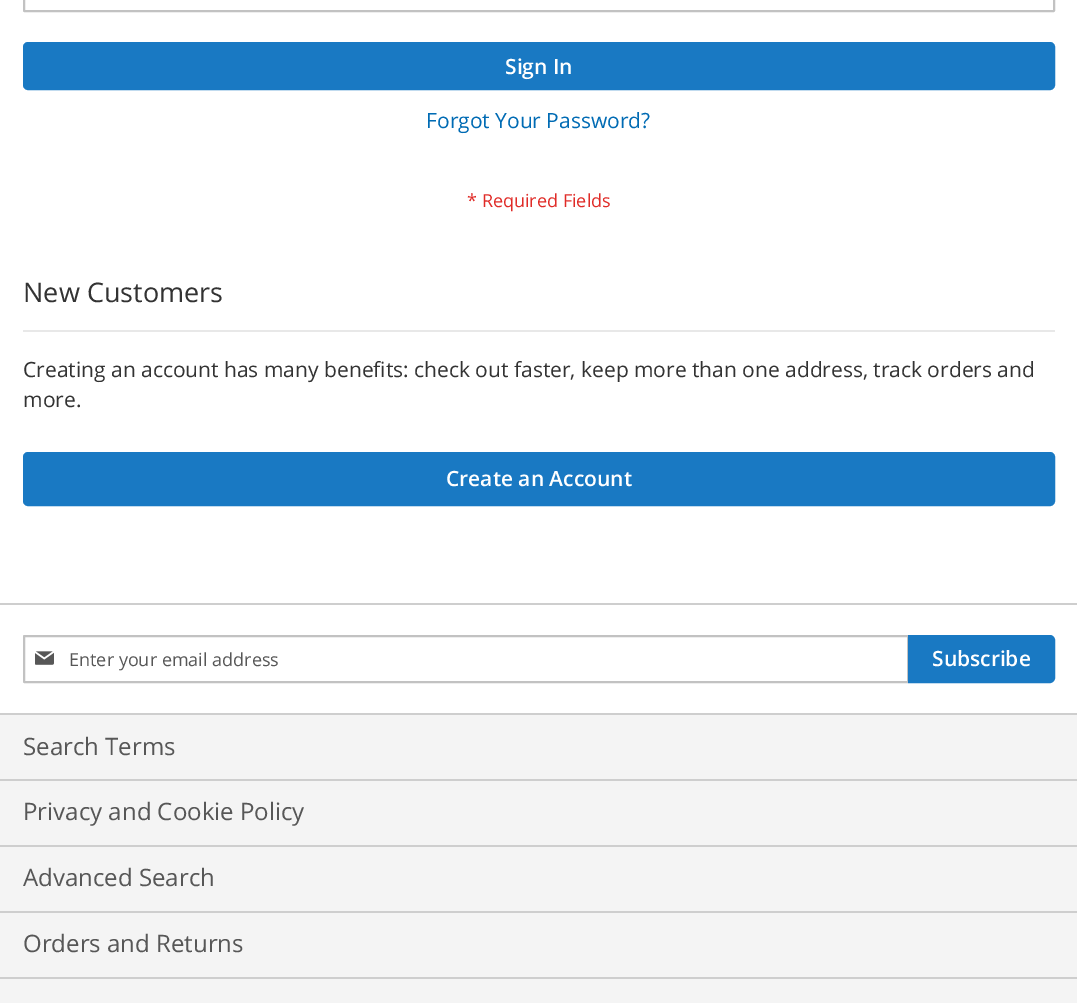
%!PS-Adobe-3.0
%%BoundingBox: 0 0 1077 1003
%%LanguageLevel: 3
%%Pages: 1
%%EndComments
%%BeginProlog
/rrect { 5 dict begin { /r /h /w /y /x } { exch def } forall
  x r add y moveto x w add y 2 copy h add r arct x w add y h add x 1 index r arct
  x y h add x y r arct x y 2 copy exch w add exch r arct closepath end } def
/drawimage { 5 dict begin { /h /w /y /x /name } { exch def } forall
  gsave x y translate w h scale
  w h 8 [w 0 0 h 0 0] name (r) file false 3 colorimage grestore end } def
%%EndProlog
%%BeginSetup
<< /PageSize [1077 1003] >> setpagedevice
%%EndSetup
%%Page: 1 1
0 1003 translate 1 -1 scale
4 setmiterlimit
1 setgray
0 0 1077 1003 rectfill
0.761 setgray
2 setlinewidth
24 -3 1030 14 0.5 rrect stroke
0.098 0.475 0.765 setrgbcolor
24 43 1030 46 4 rrect gsave fill grestore
stroke
0.91 setgray
23 330 1032 2 rectfill
0.098 0.475 0.765 setrgbcolor
24 453 1030 52 4 rrect gsave fill grestore
stroke
0.808 setgray
0 603 1077 2 rectfill
0.761 setgray
24 636 884 46 0.5 rrect stroke
(images/1.raw) 35 651 19 14 drawimage
0.098 0.475 0.765 setrgbcolor
newpath 909 636 moveto 1050 636 lineto 1052 636 1054 638 1054 640 curveto 1054 678 lineto 1054 680 1052 682 1050 682 curveto 909 682 lineto closepath gsave fill grestore
stroke
0.957 setgray
0 715 1077 64 rectfill
0.808 setgray
0 713 1077 2 rectfill
0.957 setgray
0 781 1077 64 rectfill
0.808 setgray
0 779 1077 2 rectfill
0.957 setgray
0 847 1077 64 rectfill
0.808 setgray
0 845 1077 2 rectfill
0.957 setgray
0 913 1077 64 rectfill
0.808 setgray
0 911 1077 2 rectfill
0.957 setgray
0 979 1077 24 rectfill
0.808 setgray
0 977 1077 2 rectfill
/OpenSans-SemiBold [21 0 0 -21 0 0] selectfont
1 setgray
505 74 moveto (Sign In) show
/OpenSans-Regular [21 0 0 -21 0 0] selectfont
0 0.42 0.706 setrgbcolor
426 128 moveto (Forgot Your Password?) show
/OpenSans-Regular [18 0 0 -18 0 0] selectfont
0.878 0.169 0.153 setrgbcolor
467 207 moveto (* Required Fields) show
/OpenSans-Regular [27 0 0 -27 0 0] selectfont
0.2 setgray
23 302 moveto (New Customers) show
/OpenSans-Regular [21 0 0 -21 0 0] selectfont
23 377 moveto (Creating an account has many benefits: check out faster, keep more than one address, track orders and) show
23 407 moveto (more.) show
/OpenSans-SemiBold [21 0 0 -21 0 0] selectfont
1 setgray
446 486 moveto (Create an Account) show
/OpenSans-Regular [18 0 0 -18 0 0] selectfont
0.341 setgray
69 666 moveto (Enter your email address) show
/OpenSans-SemiBold [21 0 0 -21 0 0] selectfont
1 setgray
932 666 moveto (Subscribe) show
/OpenSans-Regular [24 0 0 -24 0 0] selectfont
0.341 setgray
23 755 moveto (Search Terms) show
23 820 moveto (Privacy and Cookie Policy) show
23 886 moveto (Advanced Search) show
23 952 moveto (Orders and Returns) show
showpage
%%EOF
